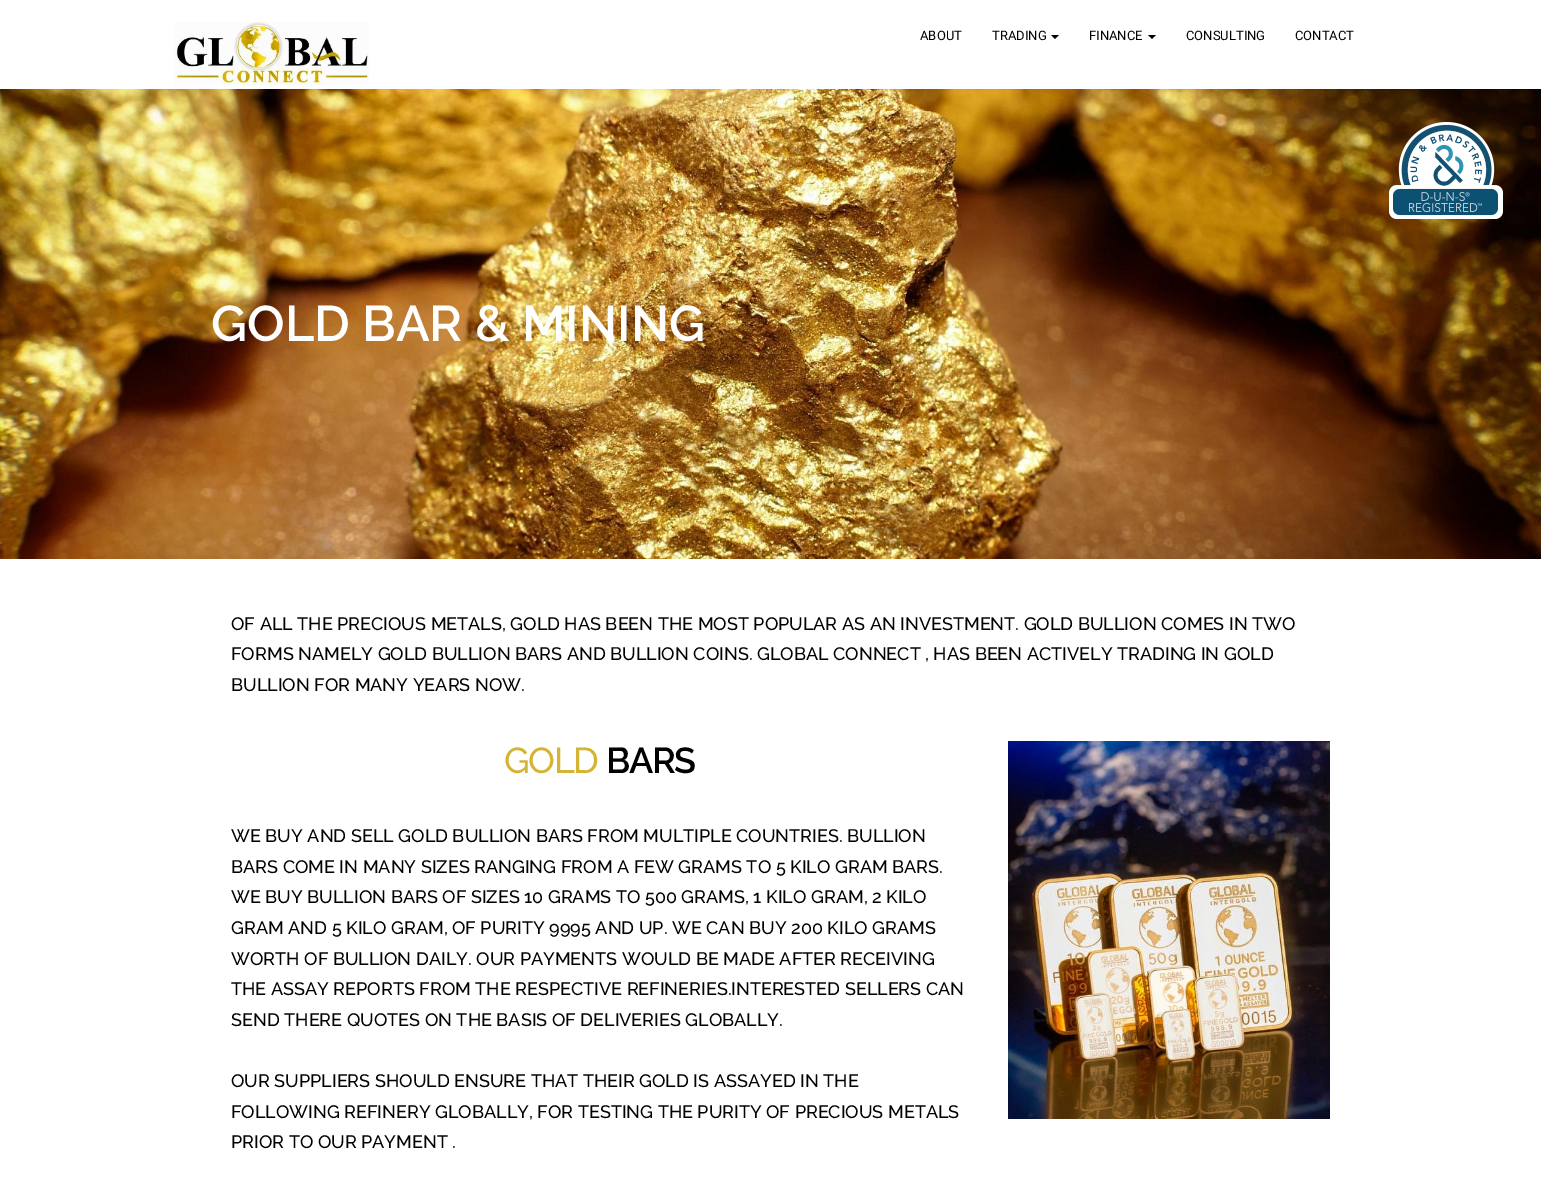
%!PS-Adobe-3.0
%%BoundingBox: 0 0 1541 1197
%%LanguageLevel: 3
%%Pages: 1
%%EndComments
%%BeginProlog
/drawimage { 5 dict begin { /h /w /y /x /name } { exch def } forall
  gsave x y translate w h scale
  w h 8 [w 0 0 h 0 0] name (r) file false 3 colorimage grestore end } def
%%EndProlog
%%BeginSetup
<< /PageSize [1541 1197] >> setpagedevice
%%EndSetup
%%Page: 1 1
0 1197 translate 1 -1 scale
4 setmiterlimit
1 setgray
0 0 1541 1197 rectfill
(images/1.raw) 174 22 195 63 drawimage
0 setgray
newpath 1051 35 moveto 1059 35 lineto 1055 39 lineto closepath fill
newpath 1148 35 moveto 1156 35 lineto 1152 39 lineto closepath fill
(images/3.raw) 0 89 1541 470 drawimage
(images/2.raw) 1389 122 114 97 drawimage
(images/4.raw) 1008 741 322 378 drawimage
/Roboto-Regular [13 0 0 -13 0 0] selectfont
920 40 moveto (ABOUT) show
992 40 moveto (TRADING) show
1089 40 moveto (FINANCE) show
1186 40 moveto (CONSULTING) show
1295 40 moveto (CONTACT) show
/Raleway-SemiBold [50 0 0 -50 0 0] selectfont
1 setgray
211 341 moveto (GOLD BAR & MINING) show
/Raleway-Medium [18 0 0 -18 0 0] selectfont
0 setgray
231 630 moveto (OF ALL THE PRECIOUS METALS, GOLD HAS BEEN THE MOST POPULAR AS AN INVESTMENT. GOLD BULLION COMES IN TWO) show
231 660 moveto (FORMS NAMELY GOLD BULLION BARS AND BULLION COINS. GLOBAL CONNECT , HAS BEEN ACTIVELY TRADING IN GOLD) show
231 691 moveto (BULLION FOR MANY YEARS NOW.) show
/Raleway-Medium [36 0 0 -36 0 0] selectfont
0.835 0.706 0.204 setrgbcolor
504 773 moveto -1.5 0 (GOLD) ashow
/Raleway-SemiBold [36 0 0 -36 0 0] selectfont
0 setgray
606 773 moveto -1.5 0 (BARS) ashow
/Raleway-Medium [18 0 0 -18 0 0] selectfont
231 842 moveto (WE BUY AND SELL GOLD BULLION BARS FROM MULTIPLE COUNTRIES. BULLION) show
231 873 moveto (BARS COME IN MANY SIZES RANGING FROM A FEW GRAMS TO 5 KILO GRAM BARS.) show
231 903 moveto (WE BUY BULLION BARS OF SIZES 10 GRAMS TO 500 GRAMS, 1 KILO GRAM, 2 KILO) show
231 934 moveto (GRAM AND 5 KILO GRAM, OF PURITY 9995 AND UP. WE CAN BUY 200 KILO GRAMS) show
231 965 moveto (WORTH OF BULLION DAILY. OUR PAYMENTS WOULD BE MADE AFTER RECEIVING) show
231 995 moveto (THE ASSAY REPORTS FROM THE RESPECTIVE REFINERIES.INTERESTED SELLERS CAN) show
231 1026 moveto (SEND THERE QUOTES ON THE BASIS OF DELIVERIES GLOBALLY.) show
231 1087 moveto (OUR SUPPLIERS SHOULD ENSURE THAT THEIR GOLD IS ASSAYED IN THE) show
231 1118 moveto (FOLLOWING REFINERY GLOBALLY, FOR TESTING THE PURITY OF PRECIOUS METALS) show
231 1148 moveto (PRIOR TO OUR PAYMENT .) show
showpage
%%EOF
